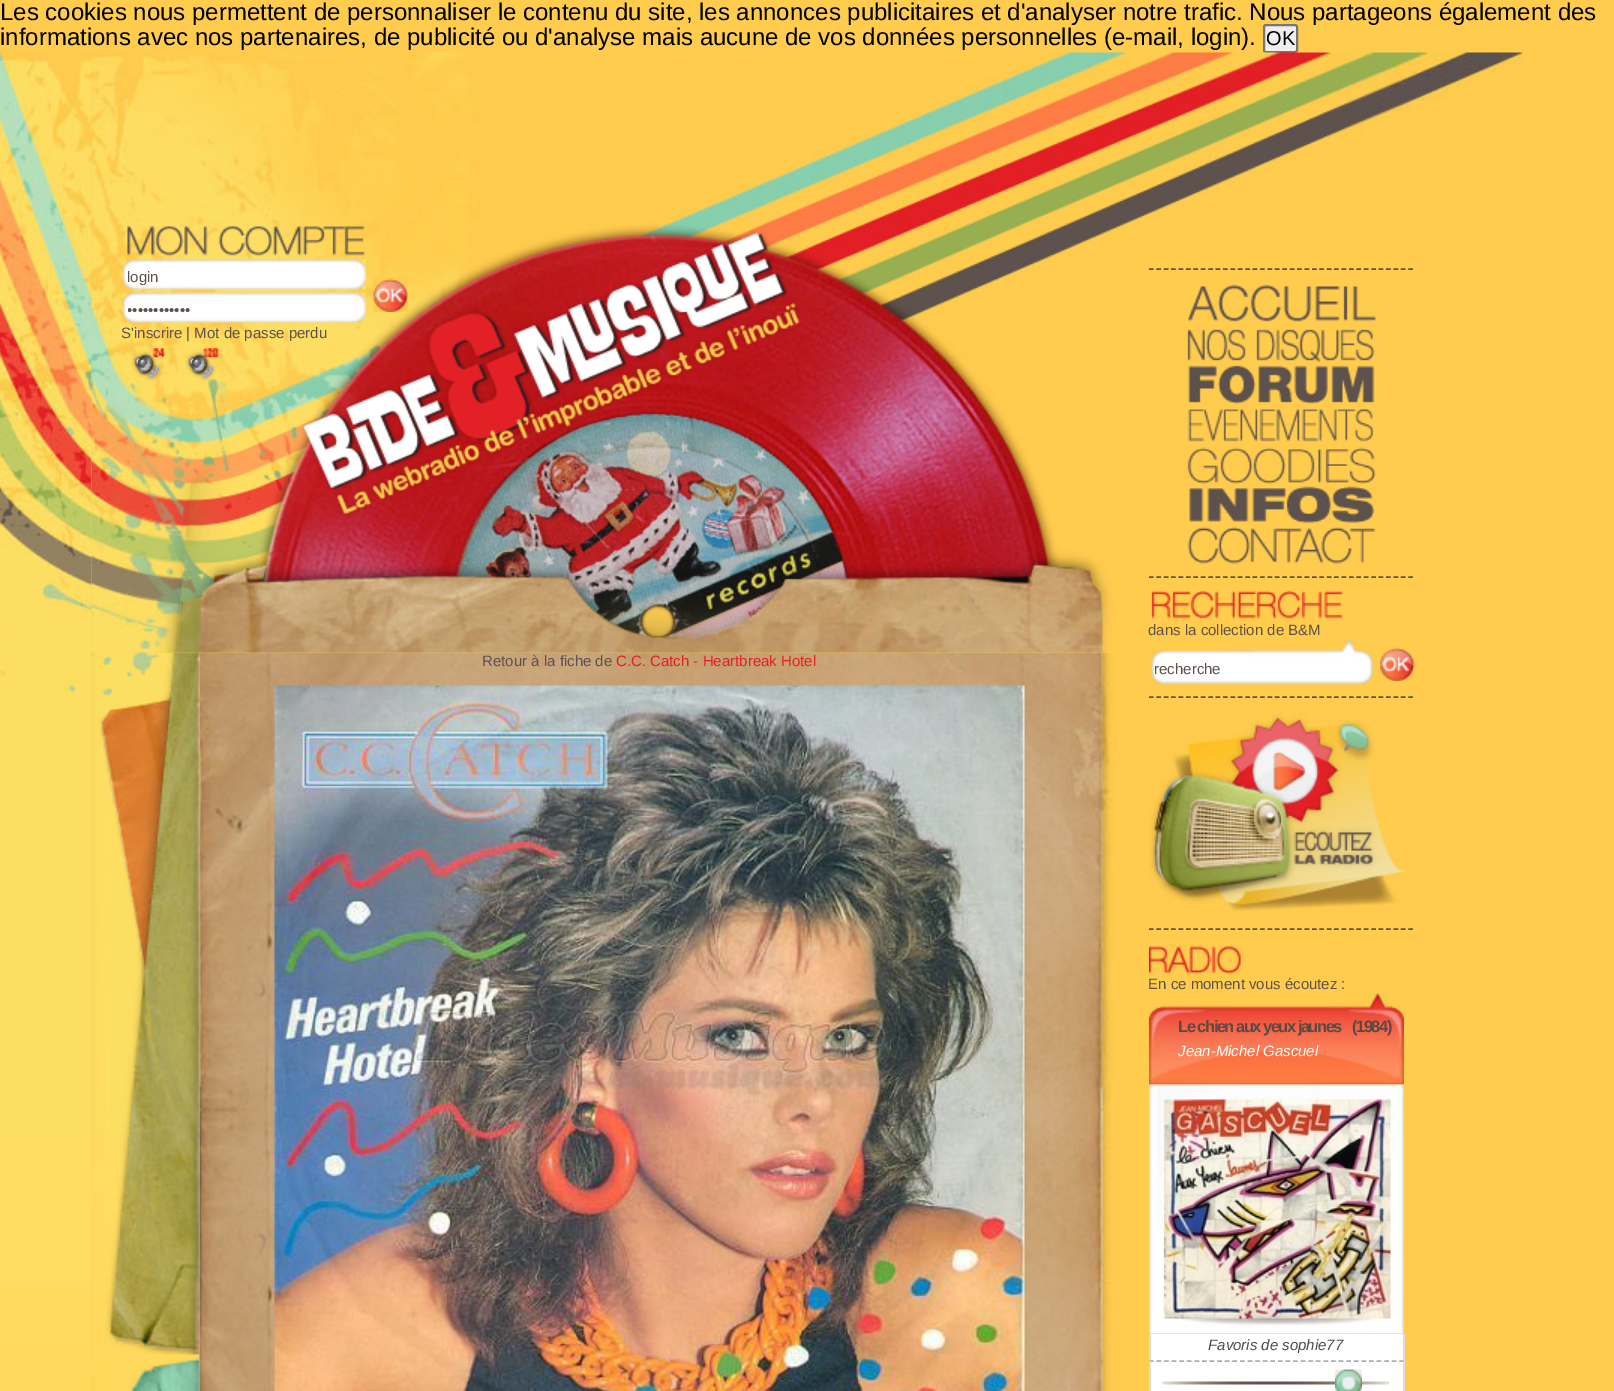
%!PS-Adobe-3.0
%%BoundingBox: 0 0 1614 1391
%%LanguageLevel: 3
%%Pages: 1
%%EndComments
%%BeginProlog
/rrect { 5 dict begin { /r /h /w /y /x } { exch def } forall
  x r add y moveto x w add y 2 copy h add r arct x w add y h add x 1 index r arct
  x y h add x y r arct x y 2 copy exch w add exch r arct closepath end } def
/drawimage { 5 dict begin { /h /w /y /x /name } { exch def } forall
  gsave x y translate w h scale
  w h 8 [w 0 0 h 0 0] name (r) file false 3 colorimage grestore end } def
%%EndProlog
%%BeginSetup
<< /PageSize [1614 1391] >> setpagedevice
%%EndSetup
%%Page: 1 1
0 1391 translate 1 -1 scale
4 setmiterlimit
1 0.8 0.306 setrgbcolor
0 0 1614 1391 rectfill
(images/1.raw) 0 52 92 1339 drawimage
(images/27.raw) 91 652 1433 739 drawimage
(images/29.raw) 199 652 1325 739 drawimage
0.369 0.322 0.302 setrgbcolor
1.5 setlinewidth
[4.5 2.91] 0 setdash
newpath 1149 697 moveto 1413 697 lineto stroke
(images/20.raw) 1149 709 255 205 drawimage
newpath 1149 929 moveto 1413 929 lineto stroke
(images/21.raw) 1149 942 96 32 drawimage
(images/22.raw) 1149 991 255 94 drawimage
(images/23.raw) 1149 1084 255 250 drawimage
(images/24.raw) 1164 1099 227 220 drawimage
1 setgray
1151 1334 252 57 rectfill
0.867 setgray
1403 1334 2 27 rectfill
1149 1334 2 27 rectfill
0.675 setgray
[4.5 3.09] 0 setdash
newpath 1149 1361 moveto 1404 1361 lineto stroke
0.867 setgray
1403 1361 2 30 rectfill
1149 1361 2 30 rectfill
(images/25.raw) 1162 1381 227 4 drawimage
(images/26.raw) 1335 1369 27 22 drawimage
(images/28.raw) 91 652 109 703 drawimage
(images/30.raw) 274 685 751 706 drawimage
(images/31.raw) 129 1355 71 36 drawimage
/LiberationSans-Regular [24 0 0 -24 0 0] selectfont
0 setgray
0 20 moveto (Les cookies nous permettent de personnaliser le contenu du site, les annonces publicitaires et d'analyser notre trafic. Nous partageons également des) show
0 45 moveto (informations avec nos partenaires, de publicité ou d'analyse mais aucune de vos données personnelles \(e-mail, login\).) show
0.937 setgray
1264 25 33 27 2 rrect gsave fill grestore
0.463 setgray
2 setlinewidth
[] 0 setdash
stroke
/LiberationSans-Regular [20 0 0 -20 0 0] selectfont
0 setgray
1266 45 moveto (OK) show
(images/2.raw) 91 52 1433 601 drawimage
(images/7.raw) 131 348 34 33 drawimage
(images/8.raw) 185 348 34 33 drawimage
(images/9.raw) 301 231 500 285 drawimage
/LiberationSans-Regular [15 0 0 -15 0 0] selectfont
0.369 0.322 0.302 setrgbcolor
121 338 moveto (S'inscrire | Mot de passe perdu) show
(images/6.raw) 373 277 35 35 drawimage
(images/5.raw) 121 292 245 31 drawimage
gsave
128 302 246 16 rectclip
127 315 moveto (••••••••••••) show
grestore
(images/4.raw) 121 259 245 31 drawimage
gsave
128 269 246 16 rectclip
127 282 moveto (login) show
grestore
(images/3.raw) 127 226 238 30 drawimage
1.5 setlinewidth
[4.5 2.91] 0 setdash
newpath 1149 269 moveto 1413 269 lineto stroke
newpath 1149 577 moveto 1413 577 lineto stroke
(images/10.raw) 1187 284 189 38 drawimage
(images/11.raw) 1187 327 188 35 drawimage
(images/12.raw) 1187 363 188 41 drawimage
(images/13.raw) 1187 403 188 39 drawimage
(images/14.raw) 1187 447 189 37 drawimage
(images/15.raw) 1189 486 186 37 drawimage
(images/16.raw) 1187 527 189 37 drawimage
(images/17.raw) 1151 590 192 29 drawimage
1148 635 moveto (dans la collection de B&M) show
(images/18.raw) 1150 638 223 47 drawimage
1154 674 moveto (recherche) show
(images/19.raw) 1380 647 35 34 drawimage
1148 989 moveto (En ce moment vous écoutez :) show
/LiberationSans-Bold [16.5 0 0 -16.5 0 0] selectfont
0.353 0.29 0.259 setrgbcolor
1178 1032 moveto -1.5 0 (Le chien aux yeux jaunes) ashow
1352 1032 moveto -1.5 0 (\(1984\)) ashow
/LiberationSans-Italic [15 0 0 -15 0 0] selectfont
1 setgray
1178 1056 moveto (Jean-Michel Gascuel) show
0.298 setgray
1208 1350 moveto (Favoris de sophie77) show
/LiberationSans-Regular [15 0 0 -15 0 0] selectfont
0.369 0.322 0.302 setrgbcolor
482 666 moveto (Retour à la fiche de) show
0.89 0.125 0.149 setrgbcolor
616 666 moveto (C.C. Catch - Heartbreak Hotel) show
showpage
%%EOF
